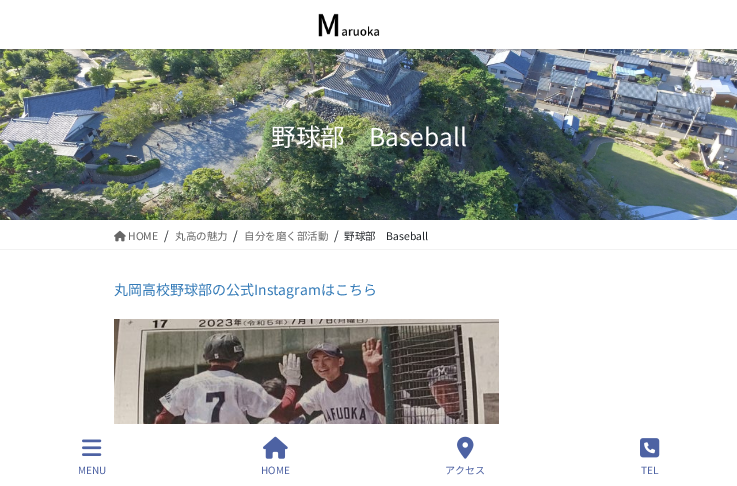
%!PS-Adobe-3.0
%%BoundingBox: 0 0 737 486
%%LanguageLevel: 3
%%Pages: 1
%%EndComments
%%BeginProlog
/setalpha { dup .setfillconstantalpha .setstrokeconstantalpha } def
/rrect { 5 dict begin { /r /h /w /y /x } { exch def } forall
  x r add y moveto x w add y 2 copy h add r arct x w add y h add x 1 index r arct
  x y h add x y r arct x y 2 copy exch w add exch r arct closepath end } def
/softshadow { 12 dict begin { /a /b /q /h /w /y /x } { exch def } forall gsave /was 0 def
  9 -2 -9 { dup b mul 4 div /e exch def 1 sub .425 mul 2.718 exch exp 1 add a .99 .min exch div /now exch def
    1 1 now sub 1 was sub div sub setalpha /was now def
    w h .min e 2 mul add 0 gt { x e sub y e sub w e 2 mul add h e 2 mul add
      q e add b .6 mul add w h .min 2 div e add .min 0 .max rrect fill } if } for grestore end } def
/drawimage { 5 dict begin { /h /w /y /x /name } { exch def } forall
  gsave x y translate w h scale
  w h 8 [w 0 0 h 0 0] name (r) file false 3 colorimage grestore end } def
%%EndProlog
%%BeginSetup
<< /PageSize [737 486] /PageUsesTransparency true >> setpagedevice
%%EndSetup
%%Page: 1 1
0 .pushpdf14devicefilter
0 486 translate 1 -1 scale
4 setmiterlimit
1 setgray
0 0 737 486 rectfill
(images/2.raw) 0 49 737 171 drawimage
gsave
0 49 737 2 rectclip
0 setgray
0 1 737 49 0 1.5 0.1 softshadow
grestore
(images/1.raw) 318 13 62 24 drawimage
0.949 setgray
0 249 737 1 rectfill
(images/3.raw) 114 230 12 12 drawimage
(images/4.raw) 114 319 385 105 drawimage
(images/5.raw) 82 439 20 17 drawimage
(images/6.raw) 263 436 25 23 drawimage
(images/7.raw) 457 436 17 23 drawimage
(images/8.raw) 640 438 20 20 drawimage
/NotoSansJP-Thin [24.5 0 0 -24.5 0 0] selectfont
1 setgray
271 146 moveto (野球部　Baseball) show
/NotoSansJP-Thin [10.5 0 0 -10.5 0 0] selectfont
0.4 setgray
128 240 moveto (HOME) show
/NotoSansJP-Thin [12 0 0 -12 0 0] selectfont
0.129 0.145 0.161 setrgbcolor
164 240 moveto (/) show
/NotoSansJP-Thin [10.5 0 0 -10.5 0 0] selectfont
0.4 setgray
175 240 moveto (丸高の魅力) show
/NotoSansJP-Thin [12 0 0 -12 0 0] selectfont
0.129 0.145 0.161 setrgbcolor
233 240 moveto (/) show
/NotoSansJP-Thin [10.5 0 0 -10.5 0 0] selectfont
0.4 setgray
244 240 moveto (自分を磨く部活動) show
/NotoSansJP-Thin [12 0 0 -12 0 0] selectfont
0.129 0.145 0.161 setrgbcolor
334 240 moveto (/) show
/NotoSansJP-Thin [10.5 0 0 -10.5 0 0] selectfont
344 240 moveto (野球部　Baseball) show
/NotoSansJP-Thin [14 0 0 -14 0 0] selectfont
0.2 0.478 0.718 setrgbcolor
114 295 moveto (丸岡高校野球部の公式Instagramはこちら) show
/NotoSansTC-Thin [10 0 0 -10 0 0] selectfont
0.306 0.384 0.639 setrgbcolor
78 474 moveto (MENU) show
261 474 moveto (HOME) show
445 474 moveto (アクセス) show
641 474 moveto (TEL) show
.poppdf14devicefilter showpage
%%EOF
